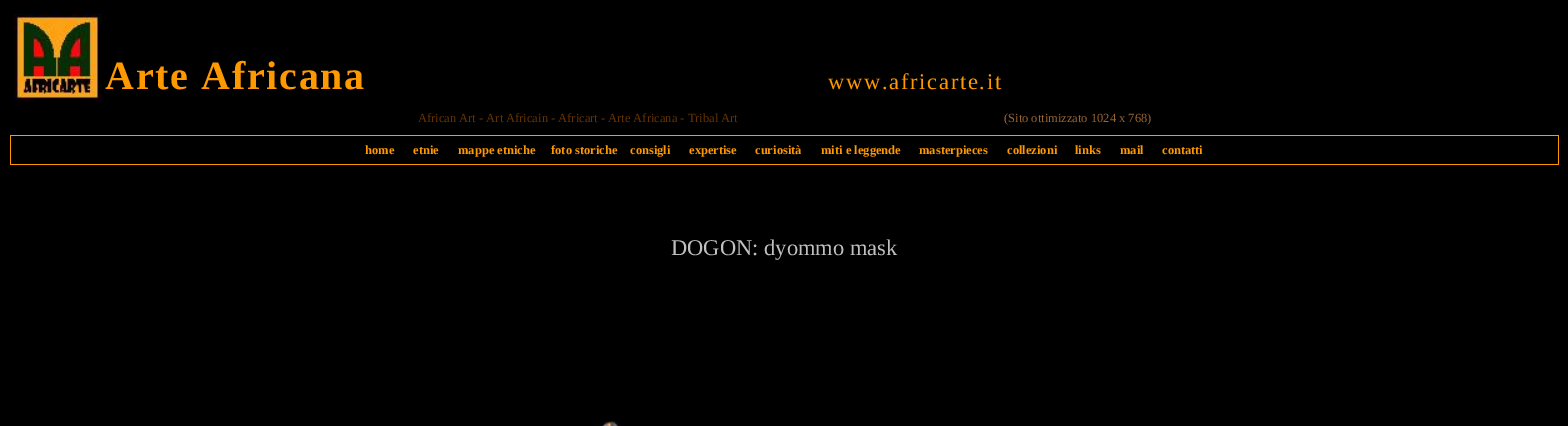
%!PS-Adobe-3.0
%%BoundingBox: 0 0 1568 426
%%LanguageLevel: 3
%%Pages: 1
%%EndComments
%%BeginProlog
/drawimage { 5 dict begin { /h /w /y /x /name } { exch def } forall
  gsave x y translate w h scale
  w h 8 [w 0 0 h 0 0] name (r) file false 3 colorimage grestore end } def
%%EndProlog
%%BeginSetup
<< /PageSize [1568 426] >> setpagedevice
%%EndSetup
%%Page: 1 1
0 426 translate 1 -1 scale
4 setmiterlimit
0 setgray
0 0 1568 426 rectfill
(images/1.raw) 13 13 89 89 drawimage
1 0.6 0 setrgbcolor
10 135 1549 1 rectfill
1558 135 1 30 rectfill
10 164 1549 1 rectfill
10 135 1 30 rectfill
(images/2.raw) 594 421 27 5 drawimage
/LiberationSerif-Bold [40 0 0 -40 0 0] selectfont
105 89 moveto 1.7 0 (Arte Africana) ashow
/LiberationSerif-Regular [22.5 0 0 -22.5 0 0] selectfont
828 89 moveto 1.7 0 (www.africarte.it) ashow
/LiberationSerif-Regular [12.5 0 0 -12.5 0 0] selectfont
0.4 0.2 0 setrgbcolor
418 122 moveto (African Art - Art Africain - Africart - Arte Africana - Tribal Art) show
0.6 0.4 0.2 setrgbcolor
1004 122 moveto (\(Sito ottimizzato 1024 x 768\)) show
/LiberationSerif-Bold [12.5 0 0 -12.5 0 0] selectfont
1 0.6 0 setrgbcolor
365 154 moveto (home) show
413 154 moveto (etnie) show
458 154 moveto (mappe etniche) show
551 154 moveto (foto storiche) show
630 154 moveto (consigli) show
689 154 moveto (expertise) show
755 154 moveto (curiosità) show
821 154 moveto (miti e leggende) show
919 154 moveto (masterpieces) show
1007 154 moveto (collezioni) show
1075 154 moveto (links) show
1120 154 moveto (mail) show
1162 154 moveto (contatti) show
/LiberationSerif-Regular [22.5 0 0 -22.5 0 0] selectfont
0.753 setgray
671 255 moveto (DOGON: dyommo mask) show
showpage
%%EOF
